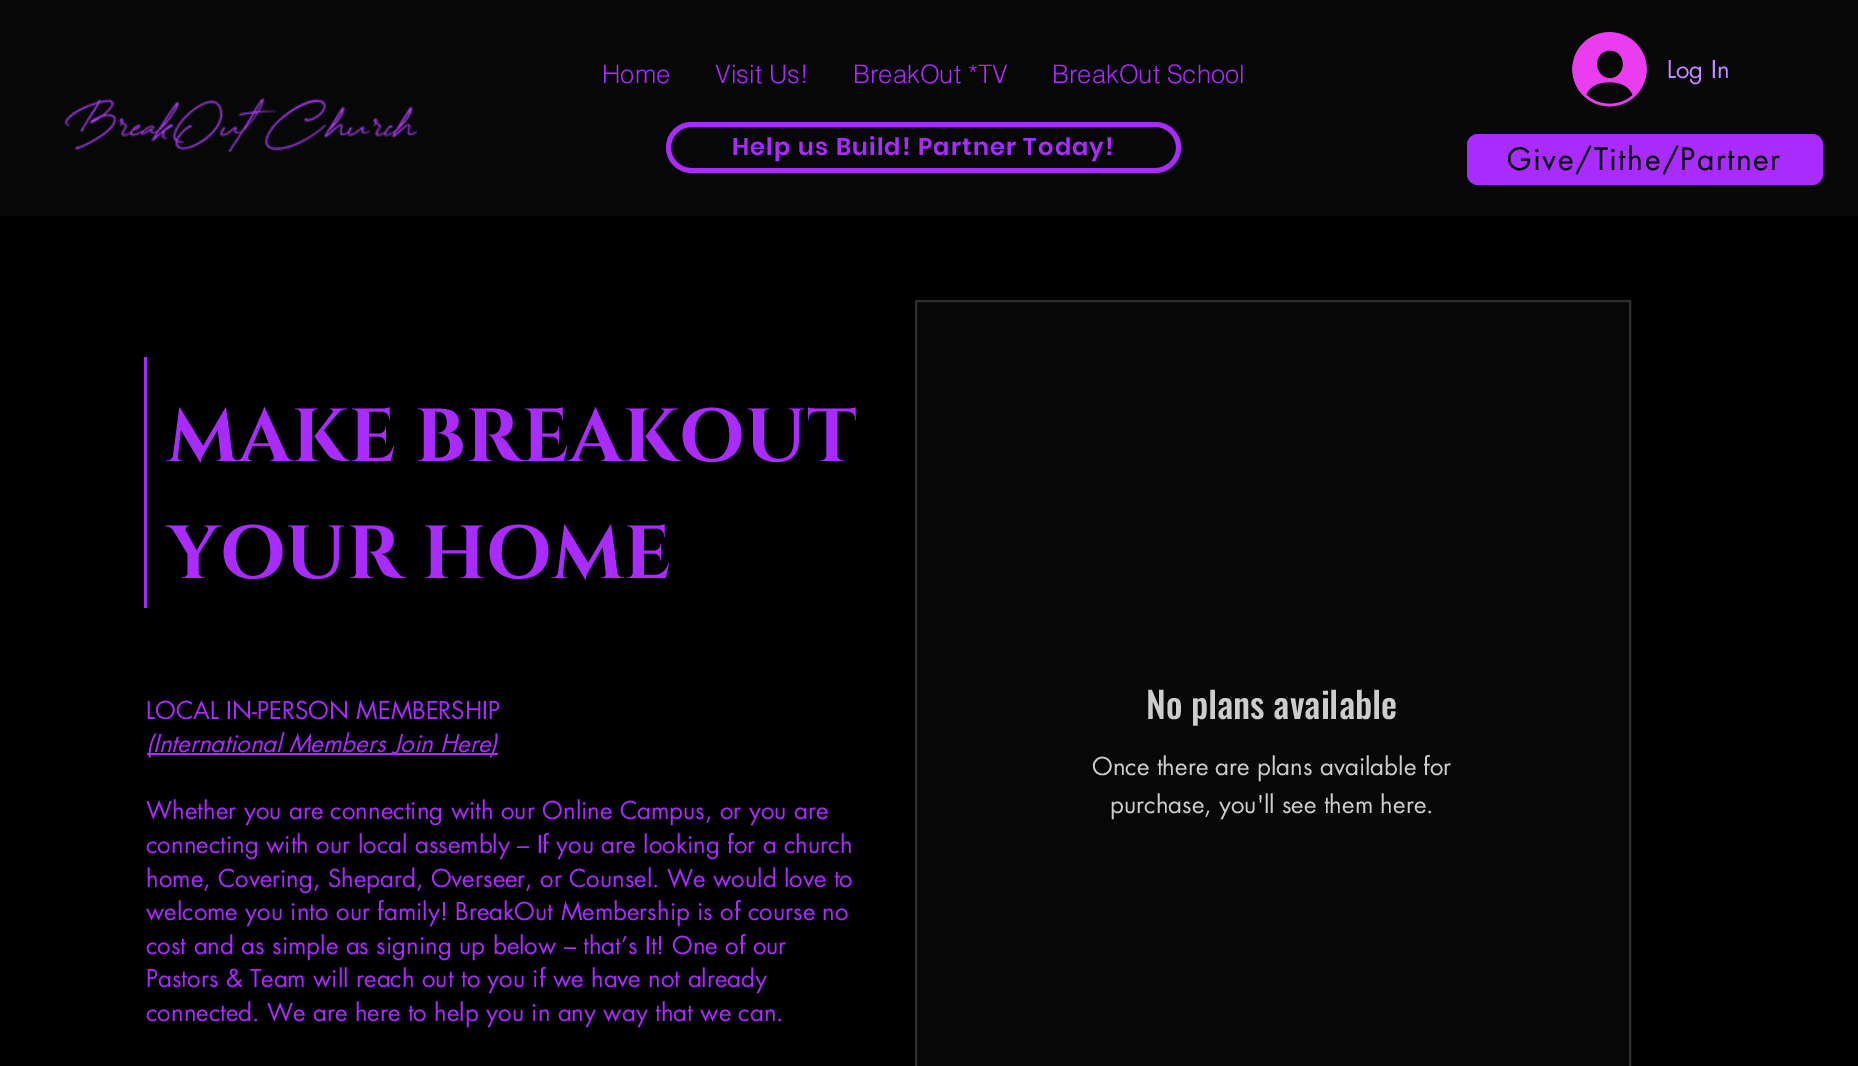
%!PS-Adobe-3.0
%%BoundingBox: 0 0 1858 1066
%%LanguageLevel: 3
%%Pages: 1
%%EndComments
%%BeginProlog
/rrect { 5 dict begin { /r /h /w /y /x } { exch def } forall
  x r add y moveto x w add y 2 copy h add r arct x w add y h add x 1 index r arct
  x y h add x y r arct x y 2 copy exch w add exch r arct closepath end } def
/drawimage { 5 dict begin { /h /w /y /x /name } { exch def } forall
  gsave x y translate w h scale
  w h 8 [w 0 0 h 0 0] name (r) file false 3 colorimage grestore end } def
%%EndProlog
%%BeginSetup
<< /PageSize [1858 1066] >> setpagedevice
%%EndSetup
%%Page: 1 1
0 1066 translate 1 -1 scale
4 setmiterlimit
0.027 setgray
0 0 1858 1066 rectfill
(images/1.raw) 64 97 354 55 drawimage
0.667 0.169 0.996 setrgbcolor
5 setlinewidth
668.5 124.5 510 46 23 rrect stroke
(images/2.raw) 1572 32 75 75 drawimage
1467 134 356 51 11 rrect fill
0 setgray
0 216 1858 850 rectfill
0.667 0.169 0.996 setrgbcolor
144 357 3 251 rectfill
147 753 351 2 rectfill
0.027 setgray
newpath 916 301 moveto 1630 301 lineto 1630 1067 lineto 916 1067 lineto closepath gsave fill grestore
0.184 setgray
2 setlinewidth
stroke
/helvetica-Light [25.5 0 0 -25.5 0 0] selectfont
0.667 0.169 0.996 setrgbcolor
602 83 moveto (Home) show
715 83 moveto (Visit Us!) show
853 83 moveto (BreakOut *TV) show
1052 83 moveto (BreakOut School) show
/Poppins-SemiBold [24 0 0 -24 0 0] selectfont
732 155 moveto 1.2 0 (Help us Build! Partner Today!) ashow
/futura-Regular [24 0 0 -24 0 0] selectfont
0.761 0.541 1 setrgbcolor
1667 78 moveto (Log In) show
/futura-Regular [30 0 0 -30 0 0] selectfont
0 setgray
1507 170 moveto 1.5 0 (Give/Tithe/Partner) ashow
/Cinzel-Bold [75 0 0 -75 0 0] selectfont
0.667 0.169 0.996 setrgbcolor
167 461 moveto (MAKE BREAKOUT) show
167 578 moveto (YOUR HOME) show
/futura-Regular [24 0 0 -24 0 0] selectfont
146 719 moveto (LOCAL IN-PERSON MEMBERSHIP) show
/futura-Italic [24 0 0 -24 0 0] selectfont
146 752 moveto (\(International Members Join Here\)) show
/futura-Regular [24 0 0 -24 0 0] selectfont
146 819 moveto (Whether you are connecting with our Online Campus, or you are) show
146 853 moveto (connecting with our local assembly – If you are looking for a church) show
146 887 moveto (home, Covering, Shepard, Overseer, or Counsel. We would love to) show
146 920 moveto (welcome you into our family! BreakOut Membership is of course no) show
146 954 moveto (cost and as simple as signing up below – that’s It! One of our) show
146 987 moveto (Pastors & Team will reach out to you if we have not already) show
146 1021 moveto (connected. We are here to help you in any way that we can.) show
/Oswald-Medium [36 0 0 -36 0 0] selectfont
0.804 setgray
1146 719 moveto (No plans available) show
/futura-Regular [24 0 0 -24 0 0] selectfont
1092 775 moveto (Once there are plans available for) show
1110 813 moveto (purchase, you'll see them here.) show
showpage
%%EOF
